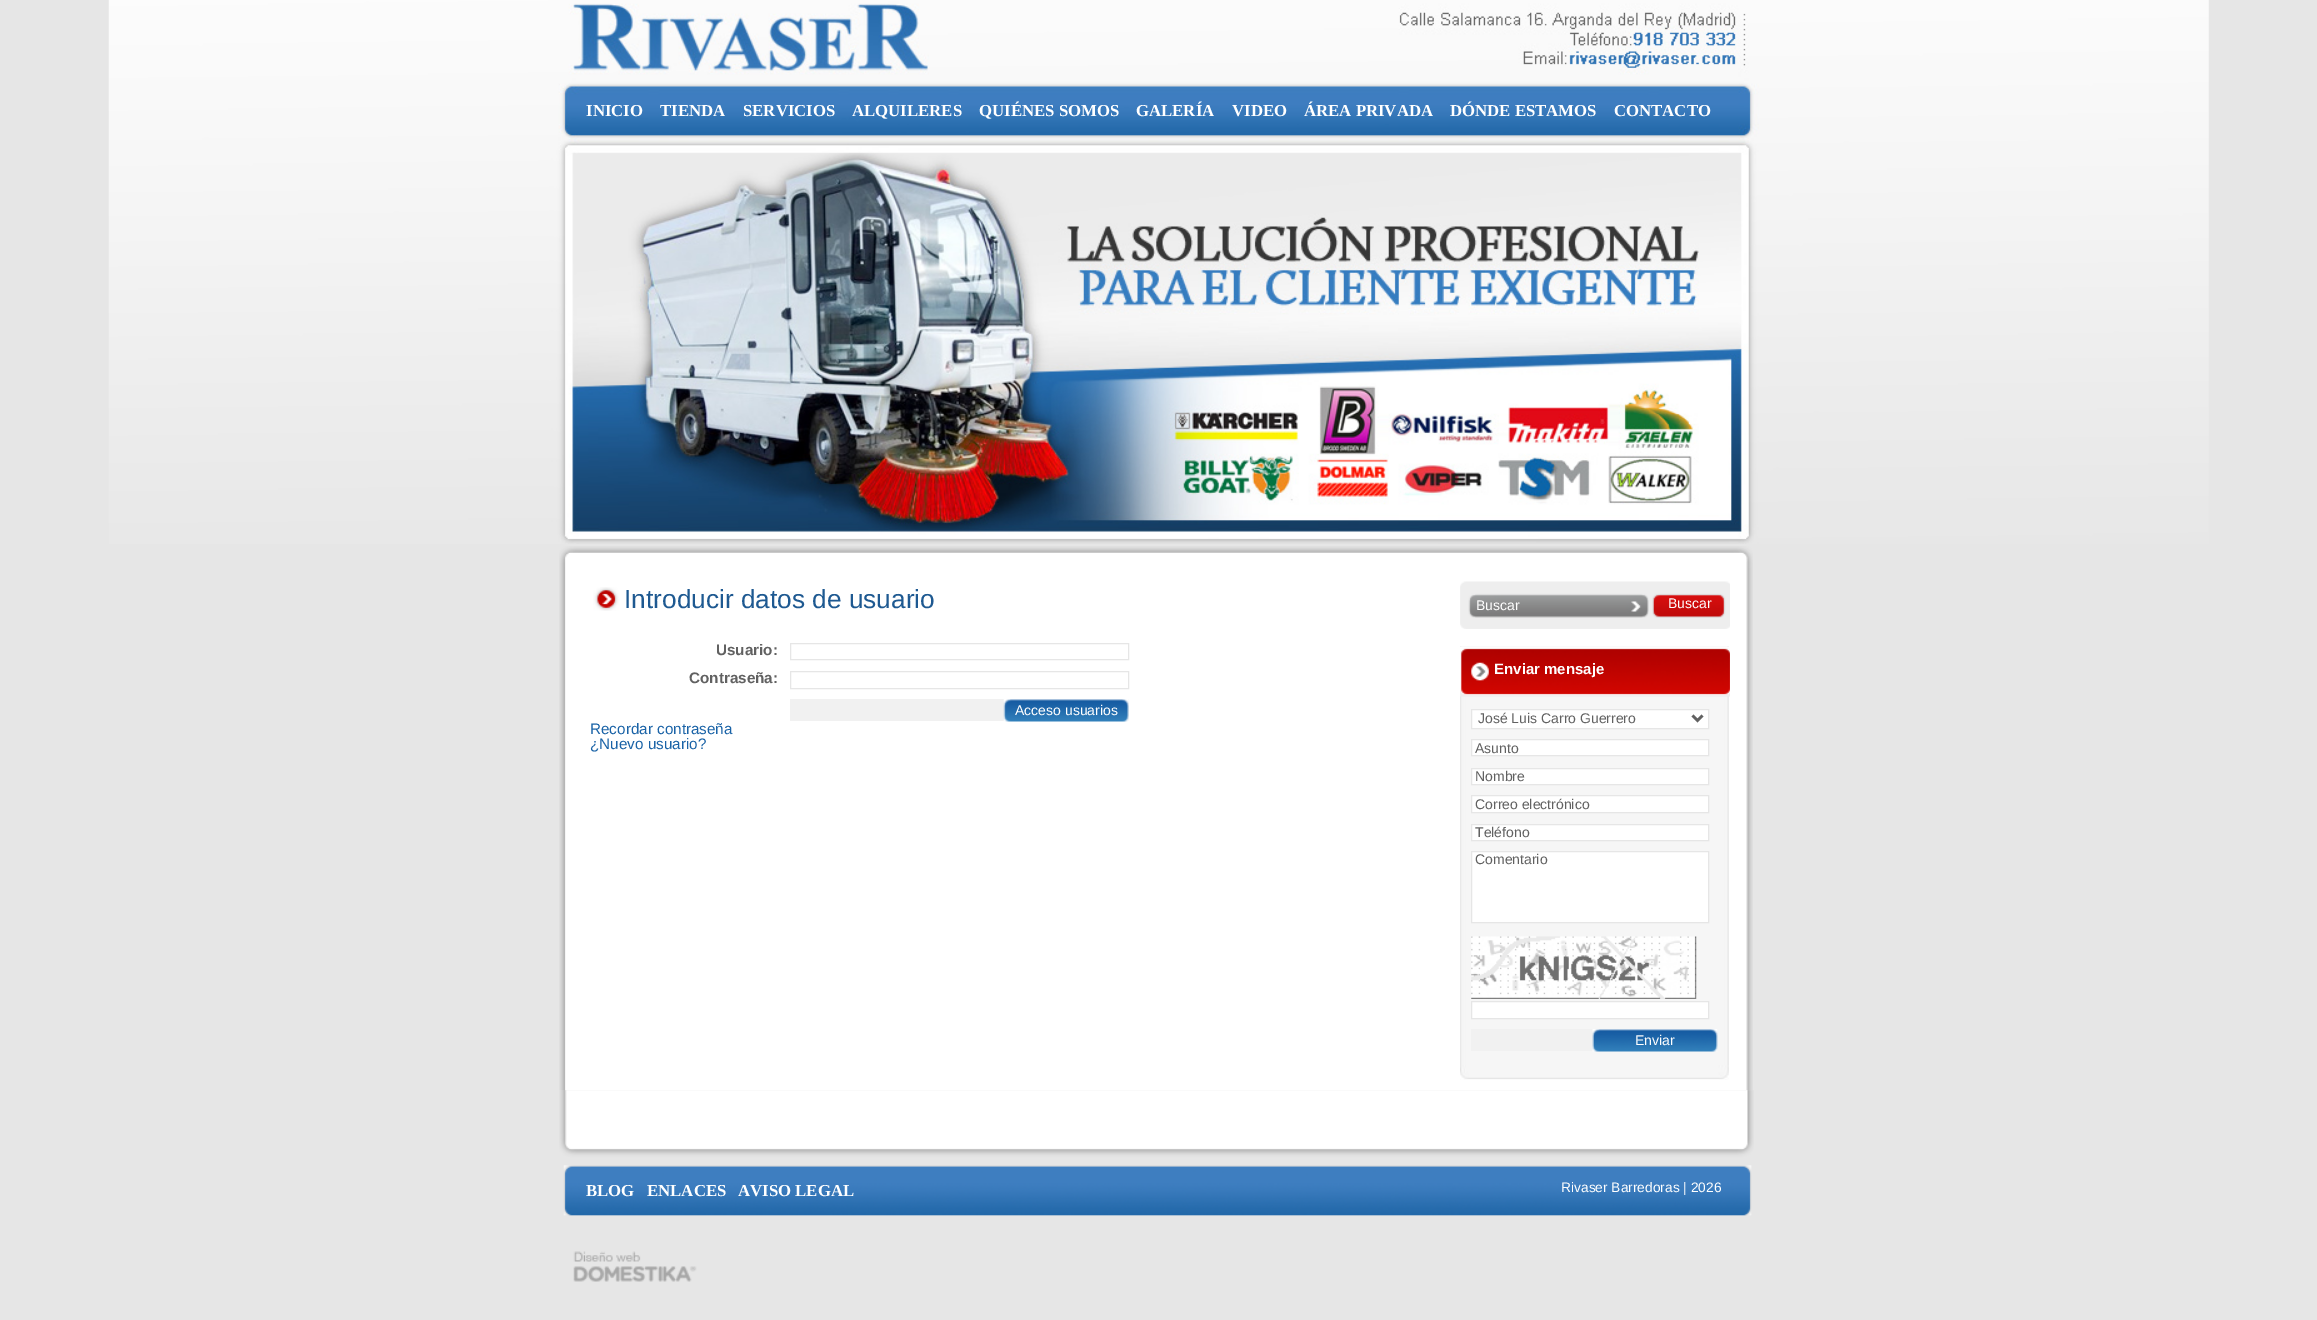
%!PS-Adobe-3.0
%%BoundingBox: 0 0 2317 1320
%%LanguageLevel: 3
%%Pages: 1
%%EndComments
%%BeginProlog
/drawimage { 5 dict begin { /h /w /y /x /name } { exch def } forall
  gsave x y translate w h scale
  w h 8 [w 0 0 h 0 0] name (r) file false 3 colorimage grestore end } def
%%EndProlog
%%BeginSetup
<< /PageSize [2317 1320] >> setpagedevice
%%EndSetup
%%Page: 1 1
0 1320 translate 1 -1 scale
4 setmiterlimit
0.902 setgray
0 0 2317 1320 rectfill
(images/1.raw) 108 0 2101 544 drawimage
(images/2.raw) 559 546 1194 545 drawimage
(images/3.raw) 593 587 27 24 drawimage
790.5 643.5 338 16 rectstroke
790.5 671.5 338 17 rectstroke
0.945 setgray
790 699 339 22 rectfill
(images/4.raw) 1003 699 126 23 drawimage
(images/5.raw) 1460 581 270 48 drawimage
(images/6.raw) 1460 646 269 434 drawimage
(images/7.raw) 1460 647 270 50 drawimage
1 setgray
newpath 1471.5 709.5 moveto 1708.5 709.5 lineto 1708.5 728.5 lineto 1471.5 728.5 lineto closepath gsave fill grestore
0.902 setgray
stroke
0.38 setgray
2.5 setlinewidth
newpath 1692.5 715.5 moveto 1697.5 720.5 lineto 1702.5 715.5 lineto stroke
1 setgray
newpath 1471.5 739.5 moveto 1708.5 739.5 lineto 1708.5 755.5 lineto 1471.5 755.5 lineto closepath gsave fill grestore
0.902 setgray
1 setlinewidth
stroke
1 setgray
newpath 1471.5 768.5 moveto 1708.5 768.5 lineto 1708.5 784.5 lineto 1471.5 784.5 lineto closepath gsave fill grestore
0.902 setgray
stroke
1 setgray
newpath 1471.5 795.5 moveto 1708.5 795.5 lineto 1708.5 812.5 lineto 1471.5 812.5 lineto closepath gsave fill grestore
0.902 setgray
stroke
1 setgray
newpath 1471.5 824.5 moveto 1708.5 824.5 lineto 1708.5 840.5 lineto 1471.5 840.5 lineto closepath gsave fill grestore
0.902 setgray
stroke
1 setgray
newpath 1471.5 851.5 moveto 1708.5 851.5 lineto 1708.5 922.5 lineto 1471.5 922.5 lineto closepath gsave fill grestore
0.902 setgray
stroke
(images/8.raw) 1471 936 226 63 drawimage
1 setgray
newpath 1471.5 1001.5 moveto 1708.5 1001.5 lineto 1708.5 1018.5 lineto 1471.5 1018.5 lineto closepath gsave fill grestore
0.902 setgray
stroke
0.945 setgray
1471 1029 247 22 rectfill
(images/9.raw) 1592 1029 126 23 drawimage
(images/10.raw) 559 1090 1195 126 drawimage
(images/11.raw) 573 1251 124 31 drawimage
/LiberationSerif-Bold [16.75 0 0 -16.75 0 0] selectfont
1 setgray
586 116 moveto (INICIO) show
660 116 moveto (TIENDA) show
743 116 moveto (SERVICIOS) show
852 116 moveto (ALQUILERES) show
979 116 moveto (QUIÉNES SOMOS) show
1136 116 moveto (GALERÍA) show
1232 116 moveto (VIDEO) show
1304 116 moveto (ÁREA PRIVADA) show
1450 116 moveto (DÓNDE ESTAMOS) show
1614 116 moveto (CONTACTO) show
/LiberationSans-Regular [26.25 0 0 -26.25 0 0] selectfont
0.118 0.349 0.569 setrgbcolor
624 608 moveto (Introducir datos de usuario) show
/LiberationSans-Bold [15.25 0 0 -15.25 0 0] selectfont
0.38 setgray
716 655 moveto (Usuario:) show
689 683 moveto (Contraseña:) show
/LiberationSans-Regular [14 0 0 -14 0 0] selectfont
1 setgray
1015 715 moveto (Acceso usuarios) show
/LiberationSans-Regular [15.25 0 0 -15.25 0 0] selectfont
0.102 0.388 0.655 setrgbcolor
590 734 moveto (Recordar contraseña) show
590 749 moveto (¿Nuevo usuario?) show
/LiberationSans-Regular [14 0 0 -14 0 0] selectfont
1 setgray
1476 610 moveto (Buscar) show
1668 608 moveto (Buscar) show
/LiberationSans-Bold [15 0 0 -15 0 0] selectfont
1494 674 moveto (Enviar mensaje) show
/LiberationSans-Regular [14 0 0 -14 0 0] selectfont
0.38 setgray
1478 723 moveto (José Luis Carro Guerrero) show
1475 753 moveto (Asunto) show
1475 781 moveto (Nombre) show
1475 809 moveto (Correo electrónico) show
1475 837 moveto (Teléfono) show
1475 864 moveto (Comentario) show
1 setgray
1635 1045 moveto (Enviar) show
/LiberationSerif-Bold [16.75 0 0 -16.75 0 0] selectfont
586 1196 moveto (BLOG) show
647 1196 moveto (ENLACES) show
738 1196 moveto (AVISO LEGAL) show
/LiberationSans-Regular [13.75 0 0 -13.75 0 0] selectfont
1561 1192 moveto (Rivaser Barredoras | 2026) show
showpage
%%EOF
